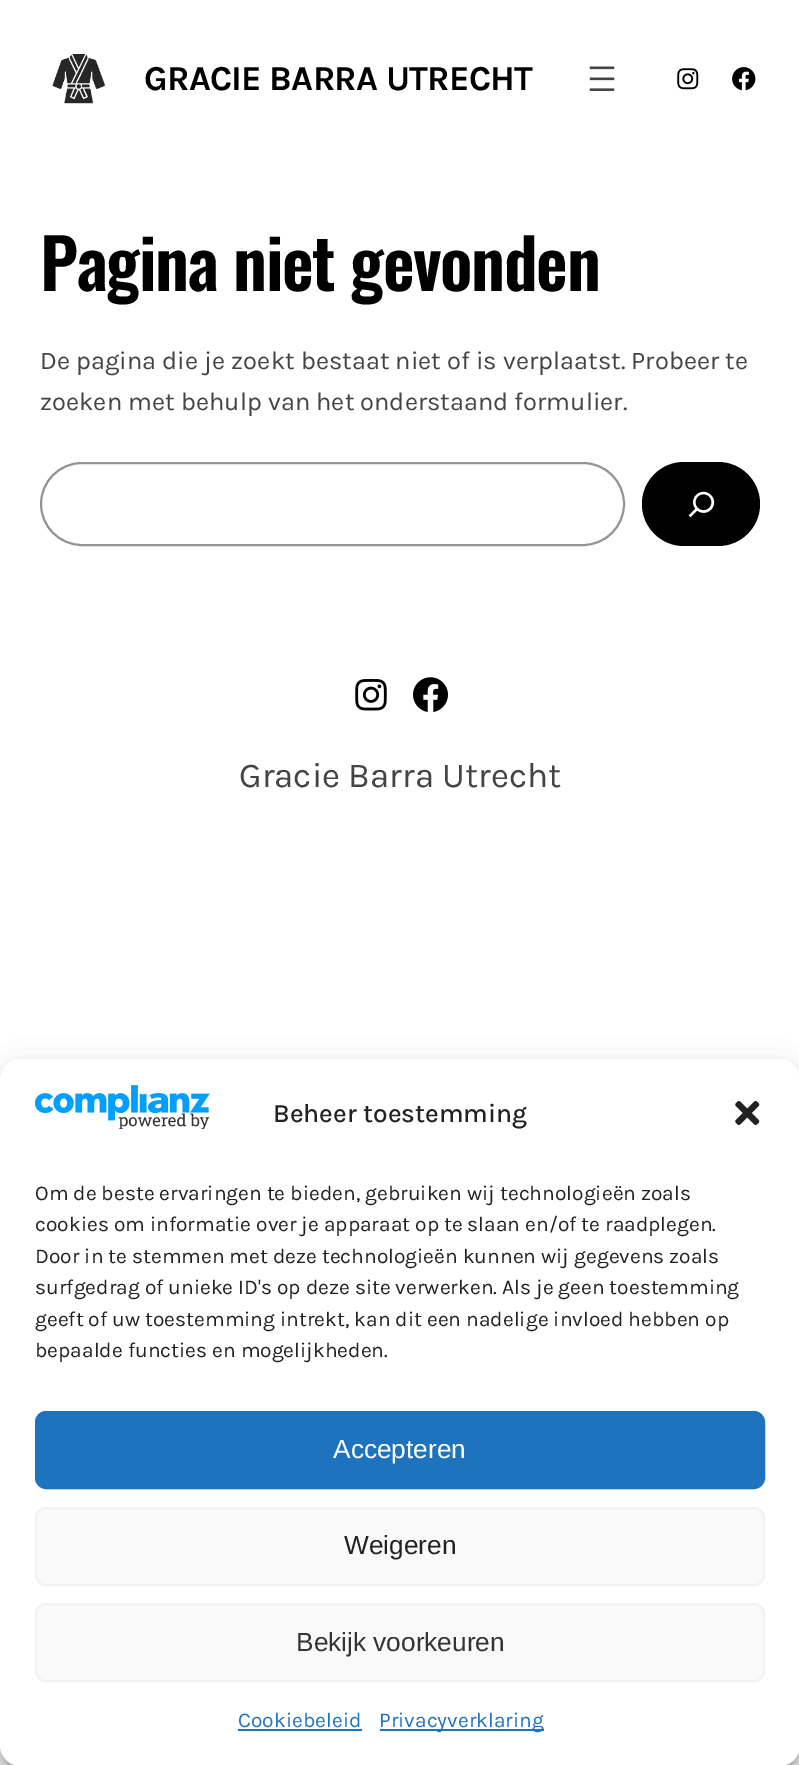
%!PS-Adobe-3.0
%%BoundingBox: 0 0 799 1765
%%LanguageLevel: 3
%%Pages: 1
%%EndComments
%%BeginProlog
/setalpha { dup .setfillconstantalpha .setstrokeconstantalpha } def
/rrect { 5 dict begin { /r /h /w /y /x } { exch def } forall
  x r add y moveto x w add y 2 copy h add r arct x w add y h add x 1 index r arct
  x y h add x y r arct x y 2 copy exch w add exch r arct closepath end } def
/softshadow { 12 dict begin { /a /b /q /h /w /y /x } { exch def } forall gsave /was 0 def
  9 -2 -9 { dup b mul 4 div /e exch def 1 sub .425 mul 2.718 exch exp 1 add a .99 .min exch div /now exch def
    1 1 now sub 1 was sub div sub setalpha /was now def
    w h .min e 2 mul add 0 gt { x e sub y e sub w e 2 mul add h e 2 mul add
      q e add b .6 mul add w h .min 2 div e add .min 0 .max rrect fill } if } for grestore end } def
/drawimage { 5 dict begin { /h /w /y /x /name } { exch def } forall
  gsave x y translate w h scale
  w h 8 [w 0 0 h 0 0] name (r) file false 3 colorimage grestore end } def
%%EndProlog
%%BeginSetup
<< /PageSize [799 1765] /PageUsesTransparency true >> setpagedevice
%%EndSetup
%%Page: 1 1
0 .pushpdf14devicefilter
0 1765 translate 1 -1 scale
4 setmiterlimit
1 setgray
0 0 799 1765 rectfill
(images/1.raw) 52 54 53 50 drawimage
(images/2.raw) 589 66 26 25 drawimage
(images/3.raw) 677 68 22 22 drawimage
(images/4.raw) 732 67 24 24 drawimage
0.58 setgray
2 setlinewidth
41 463 583 82 41 rrect stroke
0 setgray
642 462 118 84 42 rrect fill
(images/5.raw) 688 491 27 27 drawimage
(images/6.raw) 355 679 32 32 drawimage
(images/7.raw) 413 677 35 35 drawimage
0 1069 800 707 21 5 0.23 softshadow
0 1076 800 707 21 17.5 0.19 softshadow
1 setgray
0 1059 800 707 21 rrect fill
(images/8.raw) 35 1085 175 44 drawimage
(images/9.raw) 735 1101 25 24 drawimage
0.118 0.451 0.745 setrgbcolor
36 1412 728 76 10 rrect gsave fill grestore
stroke
0.976 setgray
36 1508 728 77 10 rrect gsave fill grestore
0.949 setgray
stroke
0.976 setgray
36 1604 728 77 10 rrect gsave fill grestore
0.949 setgray
stroke
0.118 0.451 0.745 setrgbcolor
238 1729 124 2 rectfill
380 1729 164 2 rectfill
/Karla-Bold [35 0 0 -35 0 0] selectfont
0 setgray
144 90 moveto -0.7 0 (GRACIE BARRA UTRECHT) ashow
/Oswald-SemiBold [69 0 0 -69 0 0] selectfont
40 291 moveto -1.4 0 (Pagina niet gevonden) ashow
/Karla-Regular [25.5 0 0 -25.5 0 0] selectfont
0.267 setgray
40 369 moveto (De pagina die je zoekt bestaat niet of is verplaatst. Probeer te) show
40 410 moveto (zoeken met behulp van het onderstaand formulier.) show
/Karla-Regular [35 0 0 -35 0 0] selectfont
239 787 moveto (Gracie Barra Utrecht) show
/Karla-Medium [26.25 0 0 -26.25 0 0] selectfont
0.133 setgray
273 1122 moveto (Beheer toestemming) show
/Karla-Regular [21 0 0 -21 0 0] selectfont
35 1200 moveto (Om de beste ervaringen te bieden, gebruiken wij technologieën zoals) show
35 1231 moveto (cookies om informatie over je apparaat op te slaan en/of te raadplegen.) show
35 1263 moveto (Door in te stemmen met deze technologieën kunnen wij gegevens zoals) show
35 1294 moveto (surfgedrag of unieke ID's op deze site verwerken. Als je geen toestemming) show
35 1326 moveto (geeft of uw toestemming intrekt, kan dit een nadelige invloed hebben op) show
35 1357 moveto (bepaalde functies en mogelijkheden.) show
/LiberationSans-Regular [26.25 0 0 -26.25 0 0] selectfont
1 setgray
333 1458 moveto (Accepteren) show
0.133 setgray
344 1554 moveto (Weigeren) show
0.2 setgray
296 1651 moveto (Bekijk voorkeuren) show
/Karla-Regular [21 0 0 -21 0 0] selectfont
0.118 0.451 0.745 setrgbcolor
238 1727 moveto (Cookiebeleid) show
379 1727 moveto (Privacyverklaring) show
.poppdf14devicefilter showpage
%%EOF
